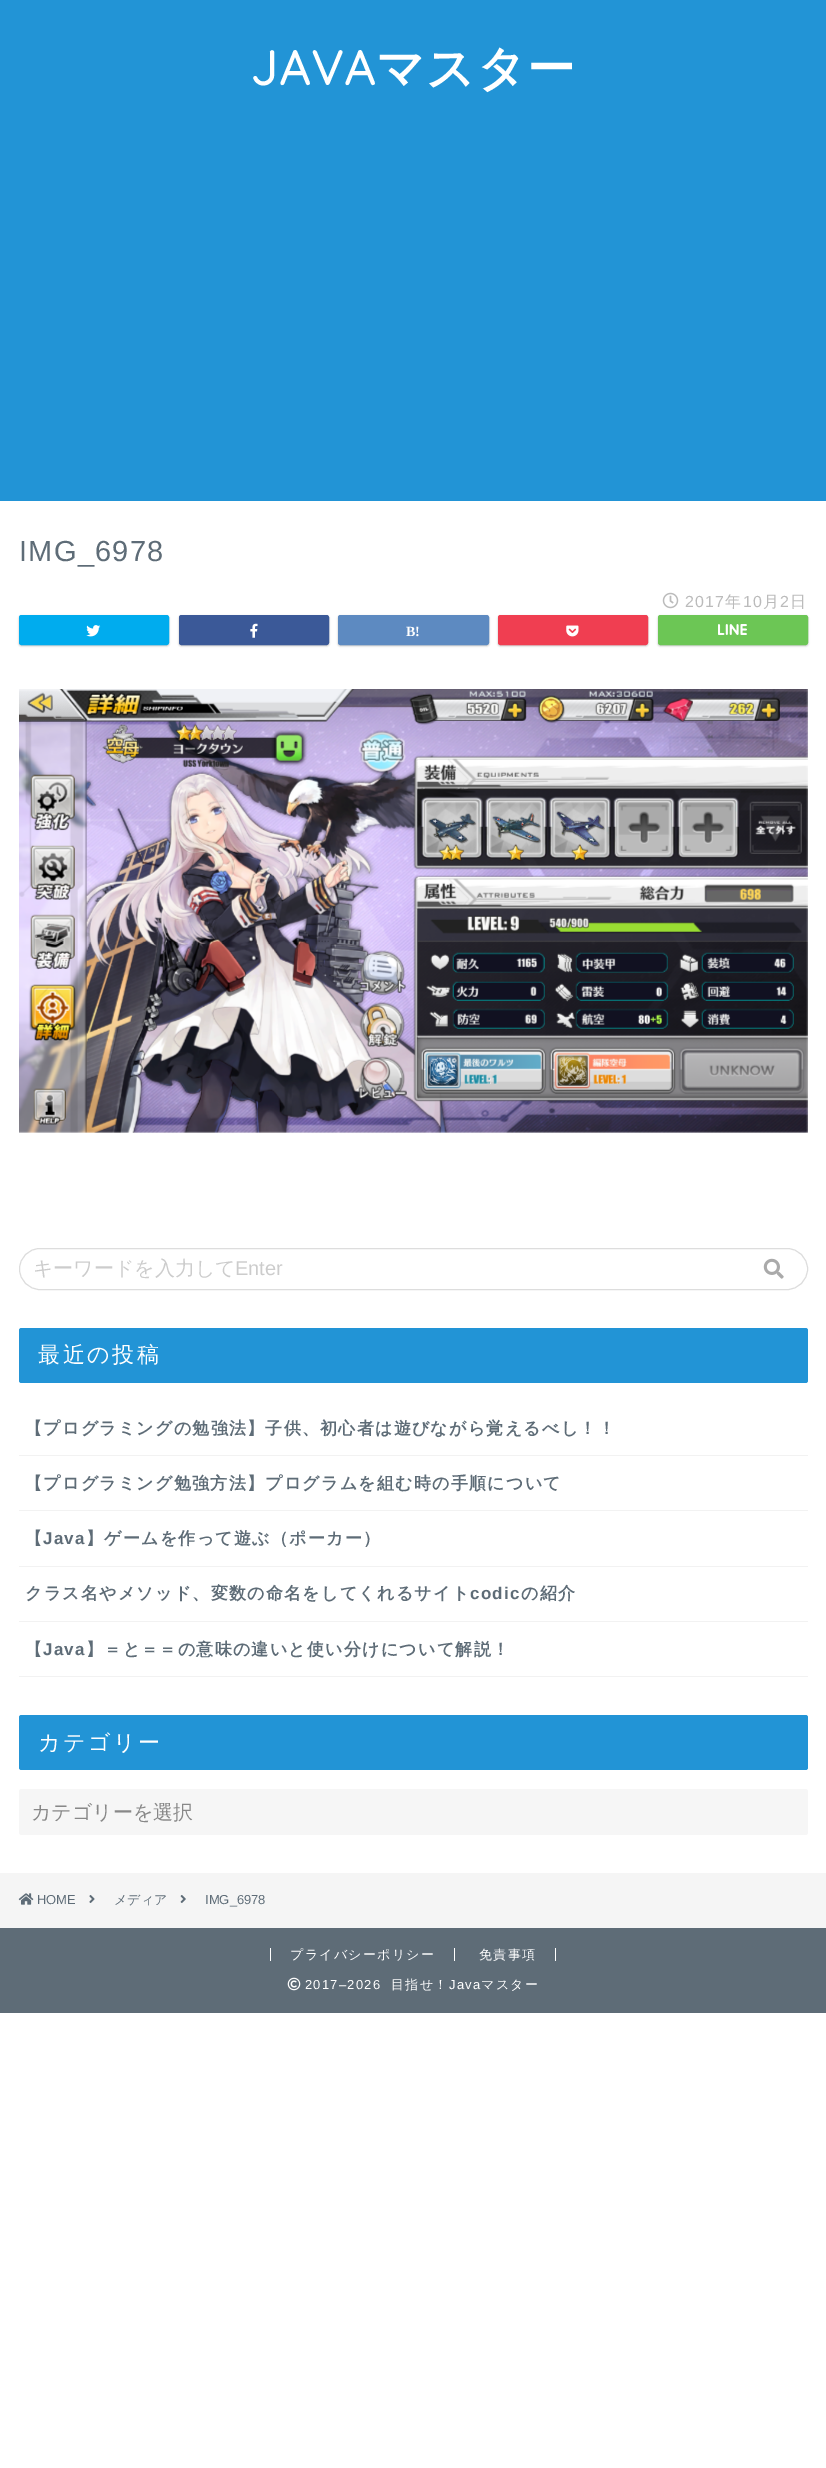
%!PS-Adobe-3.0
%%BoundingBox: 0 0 826 2468
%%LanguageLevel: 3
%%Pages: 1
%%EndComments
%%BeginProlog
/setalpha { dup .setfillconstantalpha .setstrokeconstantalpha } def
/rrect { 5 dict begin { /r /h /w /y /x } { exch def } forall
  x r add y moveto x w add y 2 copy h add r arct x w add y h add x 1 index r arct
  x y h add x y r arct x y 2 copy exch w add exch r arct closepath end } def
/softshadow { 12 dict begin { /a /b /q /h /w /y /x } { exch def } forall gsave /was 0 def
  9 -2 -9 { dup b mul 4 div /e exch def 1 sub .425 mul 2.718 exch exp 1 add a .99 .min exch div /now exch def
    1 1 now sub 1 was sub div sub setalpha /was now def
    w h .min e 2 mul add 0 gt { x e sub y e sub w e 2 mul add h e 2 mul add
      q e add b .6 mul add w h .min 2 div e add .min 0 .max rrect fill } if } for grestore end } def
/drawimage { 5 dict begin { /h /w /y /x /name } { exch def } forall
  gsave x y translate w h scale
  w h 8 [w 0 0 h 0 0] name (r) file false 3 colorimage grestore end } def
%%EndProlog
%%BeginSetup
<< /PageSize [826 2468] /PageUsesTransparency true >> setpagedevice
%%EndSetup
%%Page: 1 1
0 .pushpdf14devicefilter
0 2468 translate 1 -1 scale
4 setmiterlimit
1 setgray
0 0 826 2468 rectfill
0.133 0.58 0.839 setrgbcolor
0 0 826 501 rectfill
(images/1.raw) 662 592 17 17 drawimage
0 setgray
19 616 150 30 2.5 1 0.25 softshadow
0 0.675 0.933 setrgbcolor
20.5 616.5 147 27 1 rrect gsave fill grestore
3 setlinewidth
stroke
(images/2.raw) 86 625 15 12 drawimage
0 setgray
179 616 150 30 2.5 1 0.25 softshadow
0.231 0.349 0.596 setrgbcolor
180.5 616.5 147 27 1 rrect gsave fill grestore
stroke
(images/3.raw) 250 623 8 15 drawimage
0 setgray
338 616 151 30 2.5 1 0.25 softshadow
0.365 0.541 0.757 setrgbcolor
339.5 616.5 148 27 1 rrect gsave fill grestore
stroke
0 setgray
498 616 150 30 2.5 1 0.25 softshadow
0.941 0.243 0.318 setrgbcolor
499.5 616.5 147 27 1 rrect gsave fill grestore
stroke
(images/4.raw) 566 625 13 12 drawimage
0 setgray
658 616 150 30 2.5 1 0.25 softshadow
0.424 0.776 0.333 setrgbcolor
659.5 616.5 147 27 1 rrect gsave fill grestore
stroke
(images/5.raw) 718 624 29 11 drawimage
(images/6.raw) 19 689 789 444 drawimage
0.867 setgray
1 setlinewidth
19.5 1248.5 788 41 20.5 rrect stroke
(images/7.raw) 763 1258 21 21 drawimage
0.133 0.58 0.839 setrgbcolor
19 1328 789 55 2.5 rrect fill
0.949 setgray
19 1455 789 1 rectfill
19 1510 789 1 rectfill
19 1566 789 1 rectfill
19 1621 789 1 rectfill
19 1676 789 1 rectfill
0.133 0.58 0.839 setrgbcolor
19 1715 789 55 2.5 rrect fill
0.965 setgray
19 1789 789 46 2.5 rrect fill
0.961 setgray
0 1873 826 55 rectfill
(images/8.raw) 18 1893 16 12 drawimage
(images/9.raw) 89 1895 6 8 drawimage
(images/10.raw) 180 1895 6 8 drawimage
0.369 0.424 0.467 setrgbcolor
0 1928 826 85 rectfill
1 setgray
454 1948 1 13 rectfill
270 1948 1 13 rectfill
555 1948 1 13 rectfill
(images/11.raw) 287 1977 14 14 drawimage
/Quicksand-Bold [48 0 0 -48 0 0] selectfont
250 85 moveto 1.25 0 (JAVA) ashow
/WenQuanYiZenHei-Bold [48 0 0 -48 0 0] selectfont
376 85 moveto 1.25 0 (マスター) ashow
/LiberationSans-Regular [29 0 0 -29 0 0] selectfont
0.369 0.424 0.467 setrgbcolor
19 561 moveto 1.25 0 (IMG_6978) ashow
/LiberationSans-Regular [16 0 0 -16 0 0] selectfont
0.733 setgray
685 607 moveto 1.25 0 (2017) ashow
/WenQuanYiZenHei-Medium [16 0 0 -16 0 0] selectfont
725 607 moveto 1.25 0 (年) ashow
/LiberationSans-Regular [16 0 0 -16 0 0] selectfont
743 607 moveto 1.25 0 (10) ashow
/WenQuanYiZenHei-Medium [16 0 0 -16 0 0] selectfont
763 607 moveto 1.25 0 (月) ashow
/LiberationSans-Regular [16 0 0 -16 0 0] selectfont
780 607 moveto 1.25 0 (2) ashow
/WenQuanYiZenHei-Medium [16 0 0 -16 0 0] selectfont
790 607 moveto 1.25 0 (日) ashow
/LiberationSerif-Bold [14 0 0 -14 0 0] selectfont
1 setgray
406 636 moveto (B!) show
/WenQuanYiZenHei-Medium [20 0 0 -20 0 0] selectfont
0.8 setgray
33 1275 moveto (キーワードを入力して) show
/LiberationSans-Regular [20 0 0 -20 0 0] selectfont
235 1275 moveto (Enter) show
/WenQuanYiZenHei-Medium [22 0 0 -22 0 0] selectfont
1 setgray
38 1362 moveto 2.5 0 (最近の投稿) ashow
/WenQuanYiZenHei-Bold [17 0 0 -17 0 0] selectfont
0.369 0.424 0.467 setrgbcolor
25 1434 moveto 1.25 0 (【プログラミングの勉強法】子供、初心者は遊びながら覚えるべし！！) ashow
25 1489 moveto 1.25 0 (【プログラミング勉強方法】プログラムを組む時の手順について) ashow
25 1544 moveto 1.25 0 (【) ashow
/LiberationSans-Bold [17 0 0 -17 0 0] selectfont
43 1544 moveto 1.25 0 (Java) ashow
/WenQuanYiZenHei-Bold [17 0 0 -17 0 0] selectfont
86 1544 moveto 1.25 0 (】ゲームを作って遊ぶ（ポーカー）) ashow
25 1599 moveto 1.25 0 (クラス名やメソッド、変数の命名をしてくれるサイト) ashow
/LiberationSans-Bold [17 0 0 -17 0 0] selectfont
470 1599 moveto 1.25 0 (codic) ashow
/WenQuanYiZenHei-Bold [17 0 0 -17 0 0] selectfont
521 1599 moveto 1.25 0 (の紹介) ashow
25 1655 moveto 1.25 0 (【) ashow
/LiberationSans-Bold [17 0 0 -17 0 0] selectfont
43 1655 moveto 1.25 0 (Java) ashow
/WenQuanYiZenHei-Bold [17 0 0 -17 0 0] selectfont
86 1655 moveto 1.25 0 (】＝と＝＝の意味の違いと使い分けについて解説！) ashow
/WenQuanYiZenHei-Medium [22 0 0 -22 0 0] selectfont
1 setgray
38 1750 moveto 2.5 0 (カテゴリー) ashow
/WenQuanYiZenHei-Medium [20 0 0 -20 0 0] selectfont
0.533 setgray
31 1819 moveto (カテゴリーを選択) show
/LiberationSans-Regular [13 0 0 -13 0 0] selectfont
0.369 0.424 0.467 setrgbcolor
37 1904 moveto (HOME) show
/WenQuanYiZenHei-Medium [13 0 0 -13 0 0] selectfont
114 1904 moveto (メディア) show
/LiberationSans-Regular [13 0 0 -13 0 0] selectfont
205 1904 moveto (IMG_6978) show
/WenQuanYiZenHei-Medium [13 0 0 -13 0 0] selectfont
1 setgray
290 1959 moveto 1.25 0 (プライバシーポリシー) ashow
479 1959 moveto 1.25 0 (免責事項) ashow
/LiberationSans-Regular [13 0 0 -13 0 0] selectfont
305 1989 moveto 1.25 0 (2017–2026) ashow
/WenQuanYiZenHei-Medium [13 0 0 -13 0 0] selectfont
391 1989 moveto 1.25 0 (目指せ！) ashow
/LiberationSans-Regular [13 0 0 -13 0 0] selectfont
449 1989 moveto 1.25 0 (Java) ashow
/WenQuanYiZenHei-Medium [13 0 0 -13 0 0] selectfont
481 1989 moveto 1.25 0 (マスター) ashow
.poppdf14devicefilter showpage
%%EOF
